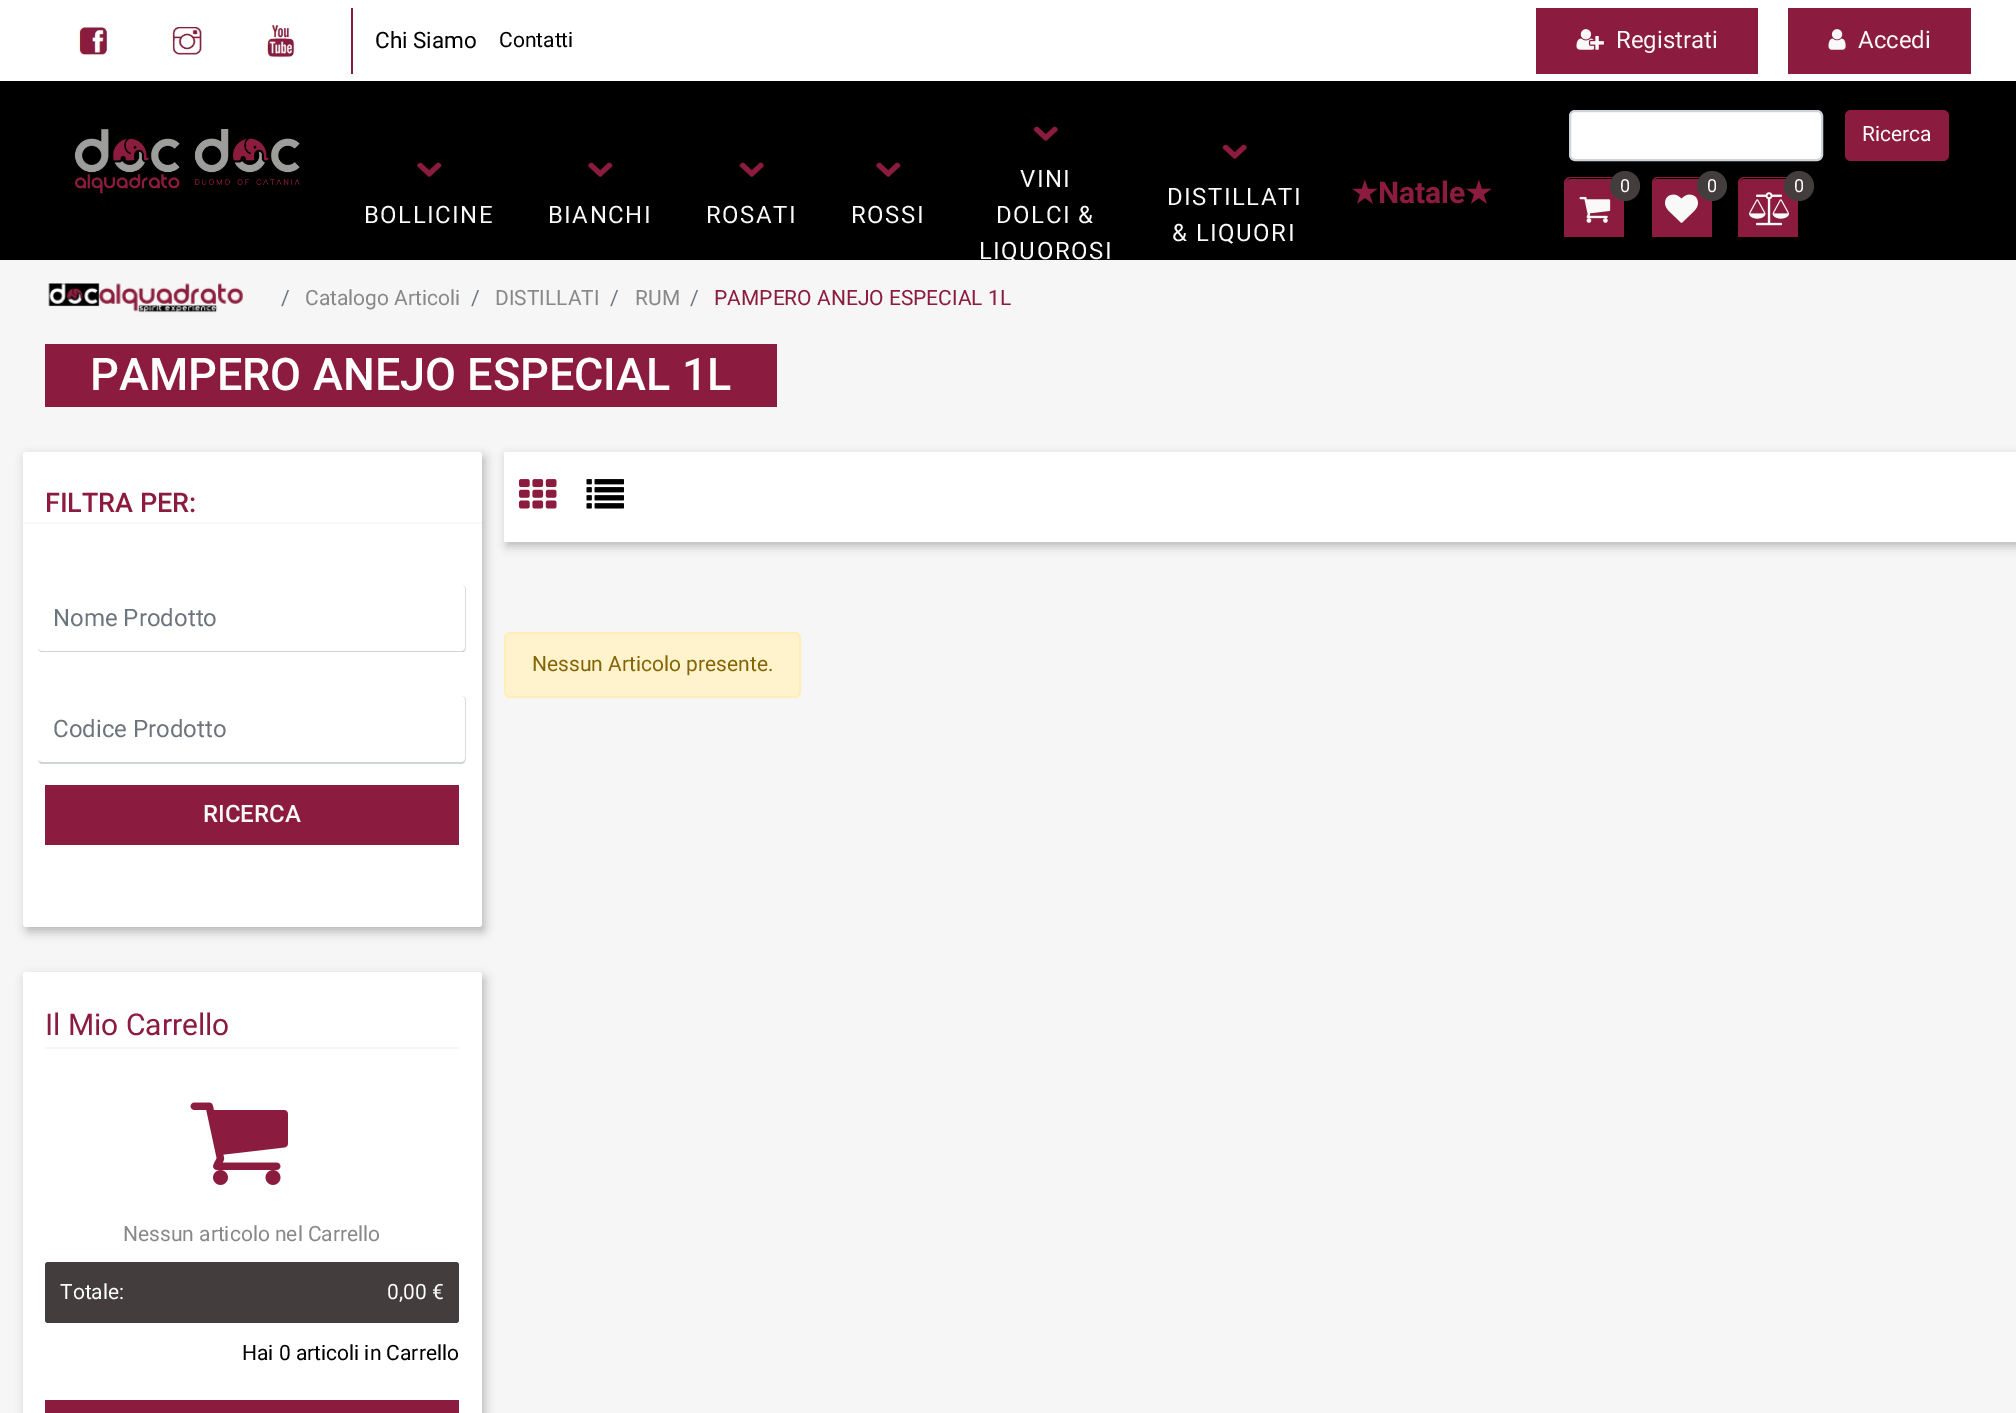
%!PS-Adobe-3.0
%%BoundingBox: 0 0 2016 1413
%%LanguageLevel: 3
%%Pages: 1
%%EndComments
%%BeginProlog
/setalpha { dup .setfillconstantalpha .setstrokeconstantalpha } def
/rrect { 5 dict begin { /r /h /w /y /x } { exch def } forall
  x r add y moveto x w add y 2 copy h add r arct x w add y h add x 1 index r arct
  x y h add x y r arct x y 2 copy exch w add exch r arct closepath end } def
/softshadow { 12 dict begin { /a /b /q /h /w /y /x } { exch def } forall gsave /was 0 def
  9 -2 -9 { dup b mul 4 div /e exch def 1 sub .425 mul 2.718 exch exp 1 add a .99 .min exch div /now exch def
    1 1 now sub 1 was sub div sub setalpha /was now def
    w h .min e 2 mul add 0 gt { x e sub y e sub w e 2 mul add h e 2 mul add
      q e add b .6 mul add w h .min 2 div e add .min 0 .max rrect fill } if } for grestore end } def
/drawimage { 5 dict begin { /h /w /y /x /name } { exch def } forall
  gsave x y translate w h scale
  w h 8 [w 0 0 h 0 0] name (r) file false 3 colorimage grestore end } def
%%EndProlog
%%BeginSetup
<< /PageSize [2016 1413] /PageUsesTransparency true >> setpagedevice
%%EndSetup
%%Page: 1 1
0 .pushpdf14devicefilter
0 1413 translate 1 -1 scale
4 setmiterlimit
0.965 setgray
0 0 2016 1413 rectfill
1 setgray
0 0 2016 81 rectfill
(images/1.raw) 78 26 32 29 drawimage
(images/2.raw) 171 26 31 29 drawimage
(images/3.raw) 266 25 30 33 drawimage
0.549 0.11 0.247 setrgbcolor
351 8 2 66 rectfill
1536 8 222 66 rectfill
(images/4.raw) 1576 29 28 21 drawimage
1788 8 183 66 rectfill
(images/5.raw) 1828 29 18 21 drawimage
0 setgray
0 81 2016 179 rectfill
(images/6.raw) 74 129 226 65 drawimage
1 setgray
1570 111 252 49 5 rrect gsave fill grestore
0.808 0.831 0.855 setrgbcolor
2 setlinewidth
stroke
0.549 0.11 0.247 setrgbcolor
1845 110 104 51 6 rrect fill
newpath 1571 179 moveto 1618 179 lineto 1621 179 1623 181 1623 184 curveto 1623 237 lineto 1566 237 lineto 1566 184 lineto 1566 181 1568 179 1571 179 curveto closepath fill
newpath 1570 177 moveto 1618 177 lineto 1622 177 1624 180 1624 183 curveto 1624 237 lineto 1564 237 lineto 1564 183 lineto 1564 180 1567 177 1570 177 curveto closepath 1570 178 moveto 1618 178 lineto 1621 178 1623 181 1623 183 curveto 1623 237 lineto 1566 237 lineto 1566 183 lineto 1566 181 1568 178 1570 178 curveto closepath eofill
(images/7.raw) 1579 196 32 27 drawimage
0.263 0.243 0.239 setrgbcolor
newpath 1625 186 15 0 360 arc closepath fill
0.549 0.11 0.247 setrgbcolor
newpath 1658 179 moveto 1705 179 lineto 1708 179 1710 181 1710 184 curveto 1710 237 lineto 1653 237 lineto 1653 184 lineto 1653 181 1655 179 1658 179 curveto closepath fill
newpath 1658 177 moveto 1706 177 lineto 1709 177 1712 180 1712 183 curveto 1712 237 lineto 1652 237 lineto 1652 183 lineto 1652 180 1654 177 1658 177 curveto closepath 1658 178 moveto 1706 178 lineto 1708 178 1710 181 1710 183 curveto 1710 237 lineto 1653 237 lineto 1653 183 lineto 1653 181 1655 178 1658 178 curveto closepath eofill
(images/8.raw) 1665 194 33 29 drawimage
0.263 0.243 0.239 setrgbcolor
newpath 1712 186 15 0 360 arc closepath fill
0.549 0.11 0.247 setrgbcolor
newpath 1745 179 moveto 1792 179 lineto 1795 179 1797 181 1797 184 curveto 1797 237 lineto 1740 237 lineto 1740 184 lineto 1740 181 1742 179 1745 179 curveto closepath fill
newpath 1744 177 moveto 1792 177 lineto 1796 177 1798 180 1798 183 curveto 1798 237 lineto 1738 237 lineto 1738 183 lineto 1738 180 1741 177 1744 177 curveto closepath 1744 178 moveto 1792 178 lineto 1795 178 1797 181 1797 183 curveto 1797 237 lineto 1740 237 lineto 1740 183 lineto 1740 181 1742 178 1744 178 curveto closepath eofill
(images/9.raw) 1749 192 40 34 drawimage
0.263 0.243 0.239 setrgbcolor
newpath 1799 186 15 0 360 arc closepath fill
(images/10.raw) 417 162 25 15 drawimage
(images/10.raw) 588 162 25 15 drawimage
(images/11.raw) 739 162 25 15 drawimage
(images/10.raw) 876 162 25 15 drawimage
(images/12.raw) 1033 126 25 15 drawimage
(images/12.raw) 1222 144 25 15 drawimage
(images/13.raw) 48 283 195 30 drawimage
0.549 0.11 0.247 setrgbcolor
45 344 732 63 rectfill
0 setgray
26 456 459 476 3 5 0.25 softshadow
1 setgray
23 452 459 475 3 rrect fill
0.976 setgray
23 522 459 2 rectfill
0.863 setgray
newpath 466 590 moveto 466 587 464 585 462 585 curveto 464 585 465 587 465 588 curveto 465 648 lineto 464 650 lineto 465 651 lineto 466 648 lineto closepath fill
0.808 0.831 0.855 setrgbcolor
newpath 465 651 moveto 464 650 lineto 462 651 lineto 42 651 lineto 40 651 38 650 38 648 curveto 38 650 40 652 42 652 curveto 462 652 lineto 463 652 464 652 465 651 curveto closepath fill
0.863 setgray
newpath 466 700 moveto 466 698 464 696 462 696 curveto 464 696 465 698 465 700 curveto 465 759 lineto 464 761 lineto 465 762 lineto 466 759 lineto closepath fill
0.808 0.831 0.855 setrgbcolor
newpath 463 764 moveto 41 764 lineto 39 763 38 760 38 759 curveto 38 761 40 762 42 762 curveto 462 762 lineto 464 761 lineto 465 762 lineto closepath fill
0.549 0.11 0.247 setrgbcolor
45 785 414 60 rectfill
0 setgray
26 977 459 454 3 5 0.25 softshadow
1 setgray
23 972 459 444 3 rrect fill
0.965 setgray
45 1047 414 2 rectfill
(images/14.raw) 190 1102 98 83 drawimage
0.263 0.243 0.239 setrgbcolor
45 1262 414 61 3 rrect fill
0.549 0.11 0.247 setrgbcolor
45 1400 414 13 rectfill
0 setgray
507 456 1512 90 0 5 0.25 softshadow
1 setgray
504 452 1512 90 rectfill
(images/15.raw) 519 479 38 30 drawimage
(images/16.raw) 586 479 38 30 drawimage
1 0.953 0.804 setrgbcolor
505 633 295 64 5 rrect gsave fill grestore
1 0.933 0.729 setrgbcolor
stroke
/Roboto-Regular [22.5 0 0 -22.5 0 0] selectfont
0 setgray
375 48 moveto (Chi Siamo) show
/Roboto-Regular [21 0 0 -21 0 0] selectfont
499 47 moveto (Contatti) show
/Roboto-Regular [24 0 0 -24 0 0] selectfont
0.976 setgray
1616 48 moveto (Registrati) show
1858 48 moveto (Accedi) show
/Roboto-Regular [21 0 0 -21 0 0] selectfont
1 setgray
1862 141 moveto (Ricerca) show
/Roboto-Regular [18 0 0 -18 0 0] selectfont
1620 192 moveto (0) show
1707 192 moveto (0) show
1794 192 moveto (0) show
/Roboto-Regular [24 0 0 -24 0 0] selectfont
0.976 setgray
364 223 moveto 1.5 0 (BOLLICINE) ashow
548 223 moveto 1.5 0 (BIANCHI) ashow
706 223 moveto 1.5 0 (ROSATI) ashow
851 223 moveto 1.5 0 (ROSSI) ashow
1020 187 moveto 1.5 0 (VINI) ashow
996 223 moveto 1.5 0 (DOLCI &) ashow
979 259 moveto 1.5 0 (LIQUOROSI) ashow
1167 205 moveto 1.5 0 (DISTILLATI) ashow
1172 241 moveto 1.5 0 (& LIQUORI) ashow
/DejaVuSans-Bold [30 0 0 -30 0 0] selectfont
0.549 0.11 0.247 setrgbcolor
1351 203 moveto (★) show
/Roboto-Bold [30 0 0 -30 0 0] selectfont
1378 203 moveto (Natale) show
/DejaVuSans-Bold [30 0 0 -30 0 0] selectfont
1465 203 moveto (★) show
/Roboto-Regular [21 0 0 -21 0 0] selectfont
0.424 0.459 0.49 setrgbcolor
281 305 moveto (/) show
0.533 setgray
305 305 moveto (Catalogo Articoli) show
0.424 0.459 0.49 setrgbcolor
471 305 moveto (/) show
0.533 setgray
495 305 moveto (DISTILLATI) show
0.424 0.459 0.49 setrgbcolor
610 305 moveto (/) show
0.533 setgray
635 305 moveto (RUM) show
0.424 0.459 0.49 setrgbcolor
690 305 moveto (/) show
0.549 0.11 0.247 setrgbcolor
714 305 moveto (PAMPERO ANEJO ESPECIAL 1L) show
/Roboto-Medium [45 0 0 -45 0 0] selectfont
1 setgray
90 390 moveto (PAMPERO ANEJO ESPECIAL 1L) show
/Roboto-Medium [27 0 0 -27 0 0] selectfont
0.549 0.11 0.247 setrgbcolor
45 512 moveto (FILTRA PER:) show
/Roboto-Regular [24 0 0 -24 0 0] selectfont
0.424 0.459 0.49 setrgbcolor
53 626 moveto (Nome Prodotto) show
53 737 moveto (Codice Prodotto) show
/Roboto-Medium [24 0 0 -24 0 0] selectfont
0.976 setgray
203 822 moveto (RICERCA) show
/Roboto-Regular [30 0 0 -30 0 0] selectfont
0.549 0.11 0.247 setrgbcolor
45 1035 moveto (Il Mio Carrello) show
/Roboto-Regular [21 0 0 -21 0 0] selectfont
0.533 setgray
123 1241 moveto (Nessun articolo nel Carrello) show
1 setgray
60 1299 moveto (Totale:) show
387 1299 moveto (0,00 €) show
0 setgray
242 1360 moveto (Hai 0 articoli in Carrello) show
0.522 0.392 0.016 setrgbcolor
532 671 moveto (Nessun Articolo presente.) show
.poppdf14devicefilter showpage
%%EOF
